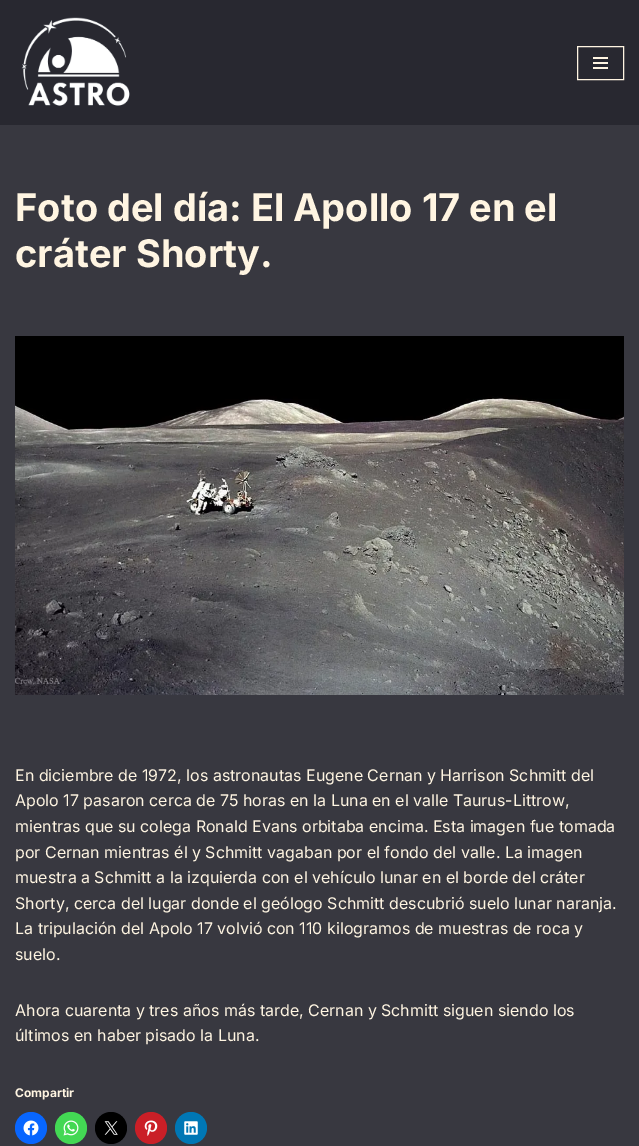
%!PS-Adobe-3.0
%%BoundingBox: 0 0 639 1146
%%LanguageLevel: 3
%%Pages: 1
%%EndComments
%%BeginProlog
/drawimage { 5 dict begin { /h /w /y /x /name } { exch def } forall
  gsave x y translate w h scale
  w h 8 [w 0 0 h 0 0] name (r) file false 3 colorimage grestore end } def
%%EndProlog
%%BeginSetup
<< /PageSize [639 1146] >> setpagedevice
%%EndSetup
%%Page: 1 1
0 1146 translate 1 -1 scale
4 setmiterlimit
0.22 0.22 0.251 setrgbcolor
0 0 639 1146 rectfill
0.157 0.157 0.188 setrgbcolor
0 0 639 125 rectfill
(images/1.raw) 21 17 109 89 drawimage
1 0.961 0.886 setrgbcolor
577.5 46.5 46 33 rectstroke
593 57 15 2 rectfill
593 62 15 2 rectfill
593 67 15 2 rectfill
(images/2.raw) 15 336 609 359 drawimage
0.031 0.4 1 setrgbcolor
newpath 31 1128 16 0 360 arc closepath fill
(images/3.raw) 23 1120 16 16 drawimage
0.263 0.847 0.329 setrgbcolor
newpath 71 1128 16 0 360 arc closepath fill
(images/4.raw) 63 1120 16 16 drawimage
0 setgray
newpath 111 1128 16 0 360 arc closepath fill
(images/5.raw) 104 1121 14 14 drawimage
0.792 0.122 0.153 setrgbcolor
newpath 151 1128 16 0 360 arc closepath fill
(images/6.raw) 144 1120 14 16 drawimage
0 0.467 0.71 setrgbcolor
newpath 191 1128 16 0 360 arc closepath fill
(images/7.raw) 184 1121 14 14 drawimage
/Inter-Bold [38 0 0 -38 0 0] selectfont
1 0.961 0.886 setrgbcolor
15 221 moveto (Foto del día: El Apollo 17 en el) show
15 267 moveto (cráter Shorty.) show
/Inter-Regular [16 0 0 -16 0 0] selectfont
15 781 moveto (En diciembre de 1972, los astronautas Eugene Cernan y Harrison Schmitt del) show
15 806 moveto (Apolo 17 pasaron cerca de 75 horas en la Luna en el valle Taurus-Littrow,) show
15 832 moveto (mientras que su colega Ronald Evans orbitaba encima. Esta imagen fue tomada) show
15 858 moveto (por Cernan mientras él y Schmitt vagaban por el fondo del valle. La imagen) show
15 883 moveto (muestra a Schmitt a la izquierda con el vehículo lunar en el borde del cráter) show
15 909 moveto (Shorty, cerca del lugar donde el geólogo Schmitt descubrió suelo lunar naranja.) show
15 934 moveto (La tripulación del Apolo 17 volvió con 110 kilogramos de muestras de roca y) show
15 960 moveto (suelo.) show
15 1016 moveto (Ahora cuarenta y tres años más tarde, Cernan y Schmitt siguen siendo los) show
15 1041 moveto (últimos en haber pisado la Luna.) show
/Inter-Bold [12 0 0 -12 0 0] selectfont
15 1097 moveto (Compartir) show
showpage
%%EOF
